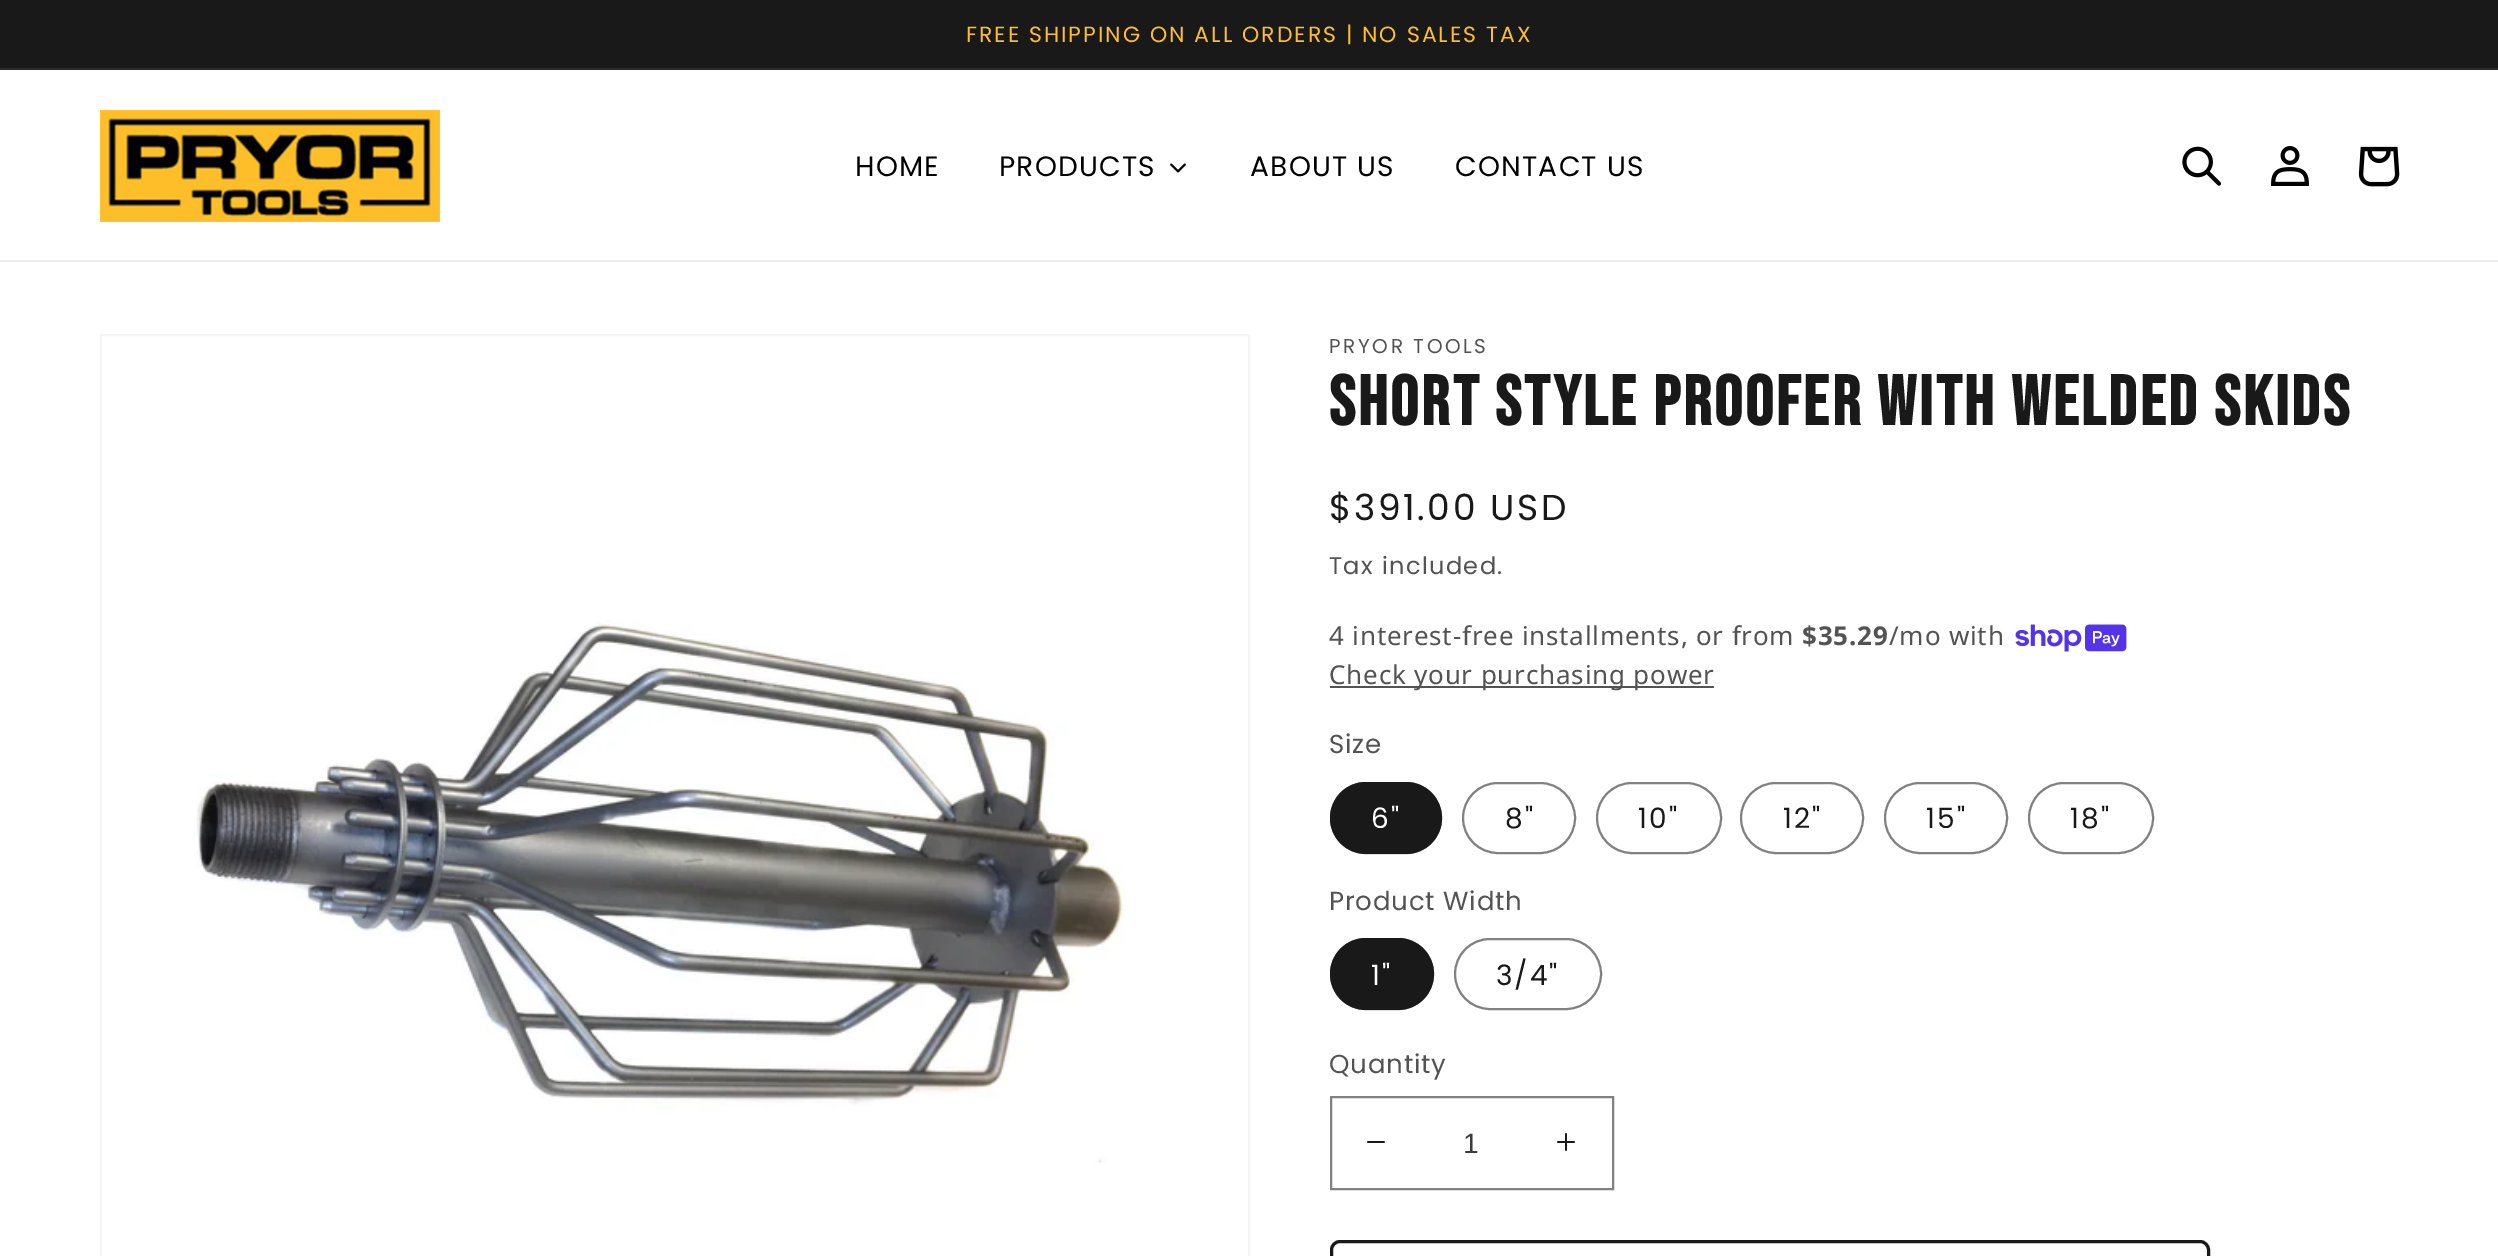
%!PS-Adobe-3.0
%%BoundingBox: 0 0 2498 1256
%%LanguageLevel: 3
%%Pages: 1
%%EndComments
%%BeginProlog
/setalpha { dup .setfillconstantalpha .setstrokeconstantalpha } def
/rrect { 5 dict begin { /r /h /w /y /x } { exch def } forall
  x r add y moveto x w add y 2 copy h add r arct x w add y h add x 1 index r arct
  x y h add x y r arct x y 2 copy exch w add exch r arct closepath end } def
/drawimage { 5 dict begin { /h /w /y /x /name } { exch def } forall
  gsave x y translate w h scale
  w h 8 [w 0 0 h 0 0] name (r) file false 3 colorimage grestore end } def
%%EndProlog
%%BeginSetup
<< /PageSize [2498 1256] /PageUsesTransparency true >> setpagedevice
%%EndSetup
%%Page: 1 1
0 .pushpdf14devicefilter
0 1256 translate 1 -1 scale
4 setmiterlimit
1 setgray
0 0 2498 1256 rectfill
0.098 setgray
0 0 2498 68 rectfill
0.169 setgray
0 68 2498 2 rectfill
0.929 setgray
0 260 2498 2 rectfill
(images/1.raw) 100 110 340 112 drawimage
(images/2.raw) 1170 163 16 10 drawimage
(images/3.raw) 2182 146 40 40 drawimage
(images/4.raw) 2271 146 38 40 drawimage
(images/5.raw) 2358 146 42 41 drawimage
0.957 setgray
2 setlinewidth
101 335 1148 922 rectstroke
(images/6.raw) 196 620 930 543 drawimage
(images/7.raw) 2015 624 112 28 drawimage
0.325 setgray
1330 686 384 2 rectfill
0.098 setgray
1330 782 112 72 36 rrect fill
0.55 setalpha
1331 783 110 70 35 rrect stroke
1 setalpha
0.506 setgray
1463 783 112 70 35 rrect stroke
1597 783 124 70 35 rrect stroke
1741 783 122 70 35 rrect stroke
1885 783 122 70 35 rrect stroke
2029 783 124 70 35 rrect stroke
0.098 setgray
1330 938 104 72 36 rrect fill
0.55 setalpha
1331 939 102 70 35 rrect stroke
1 setalpha
0.506 setgray
1455 939 146 70 35 rrect stroke
(images/8.raw) 1367 1141 18 2 drawimage
(images/9.raw) 1557 1133 18 18 drawimage
1331 1097 282 92 rectstroke
0.098 setgray
3 setlinewidth
1331.5 1241.5 877 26 8.5 rrect stroke
/Poppins-Regular [22 0 0 -22 0 0] selectfont
1 0.749 0.165 setrgbcolor
966 42 moveto 2 0 (FREE SHIPPING ON ALL ORDERS | NO SALES TAX) ashow
/Poppins-Regular [28 0 0 -28 0 0] selectfont
0 setgray
855 176 moveto 1.25 0 (HOME) ashow
999 176 moveto 1.25 0 (PRODUCTS) ashow
1250 176 moveto 1.25 0 (ABOUT US) ashow
1455 176 moveto 1.25 0 (CONTACT US) ashow
/Poppins-Regular [20 0 0 -20 0 0] selectfont
0.325 setgray
1329 353 moveto 2.6 0 (PRYOR TOOLS) ashow
/BebasNeue-Bold [70 0 0 -70 0 0] selectfont
0.098 setgray
1329 425 moveto 3 0 (Short Style Proofer with Welded Skids) ashow
/Poppins-Regular [36 0 0 -36 0 0] selectfont
1329 520 moveto 2.6 0 ($391.00 USD) ashow
/Poppins-Regular [24 0 0 -24 0 0] selectfont
0.325 setgray
1329 574 moveto 1.4 0 (Tax included.) ashow
/NotoSans-Regular [26 0 0 -26 0 0] selectfont
1329 645 moveto 0.8 0 (4 interest-free installments, or from) ashow
/NotoSans-Bold [26 0 0 -26 0 0] selectfont
1802 645 moveto 0.8 0 ($35.29) ashow
/NotoSans-Regular [26 0 0 -26 0 0] selectfont
1889 645 moveto 0.8 0 (/mo with) ashow
1329 684 moveto 0.8 0 (Check your purchasing power) ashow
/Poppins-Regular [26 0 0 -26 0 0] selectfont
1329 753 moveto 0.8 0 (Size) ashow
/Poppins-Regular [28 0 0 -28 0 0] selectfont
1 setgray
1371 828 moveto 2 0 (6") ashow
0.098 setgray
1505 828 moveto 2 0 (8") ashow
1638 828 moveto 2 0 (10") ashow
1783 828 moveto 2 0 (12") ashow
1926 828 moveto 2 0 (15") ashow
2070 828 moveto 2 0 (18") ashow
/Poppins-Regular [26 0 0 -26 0 0] selectfont
0.325 setgray
1329 910 moveto 0.8 0 (Product Width) ashow
/Poppins-Regular [28 0 0 -28 0 0] selectfont
1 setgray
1371 985 moveto 2 0 (1") ashow
0.098 setgray
1496 985 moveto 2 0 (3/4") ashow
/Poppins-Regular [26 0 0 -26 0 0] selectfont
0.325 setgray
1329 1073 moveto 0.8 0 (Quantity) ashow
/LiberationSans-Regular [28 0 0 -28 0 0] selectfont
0.235 setgray
1463 1153 moveto (1) show
.poppdf14devicefilter showpage
%%EOF
